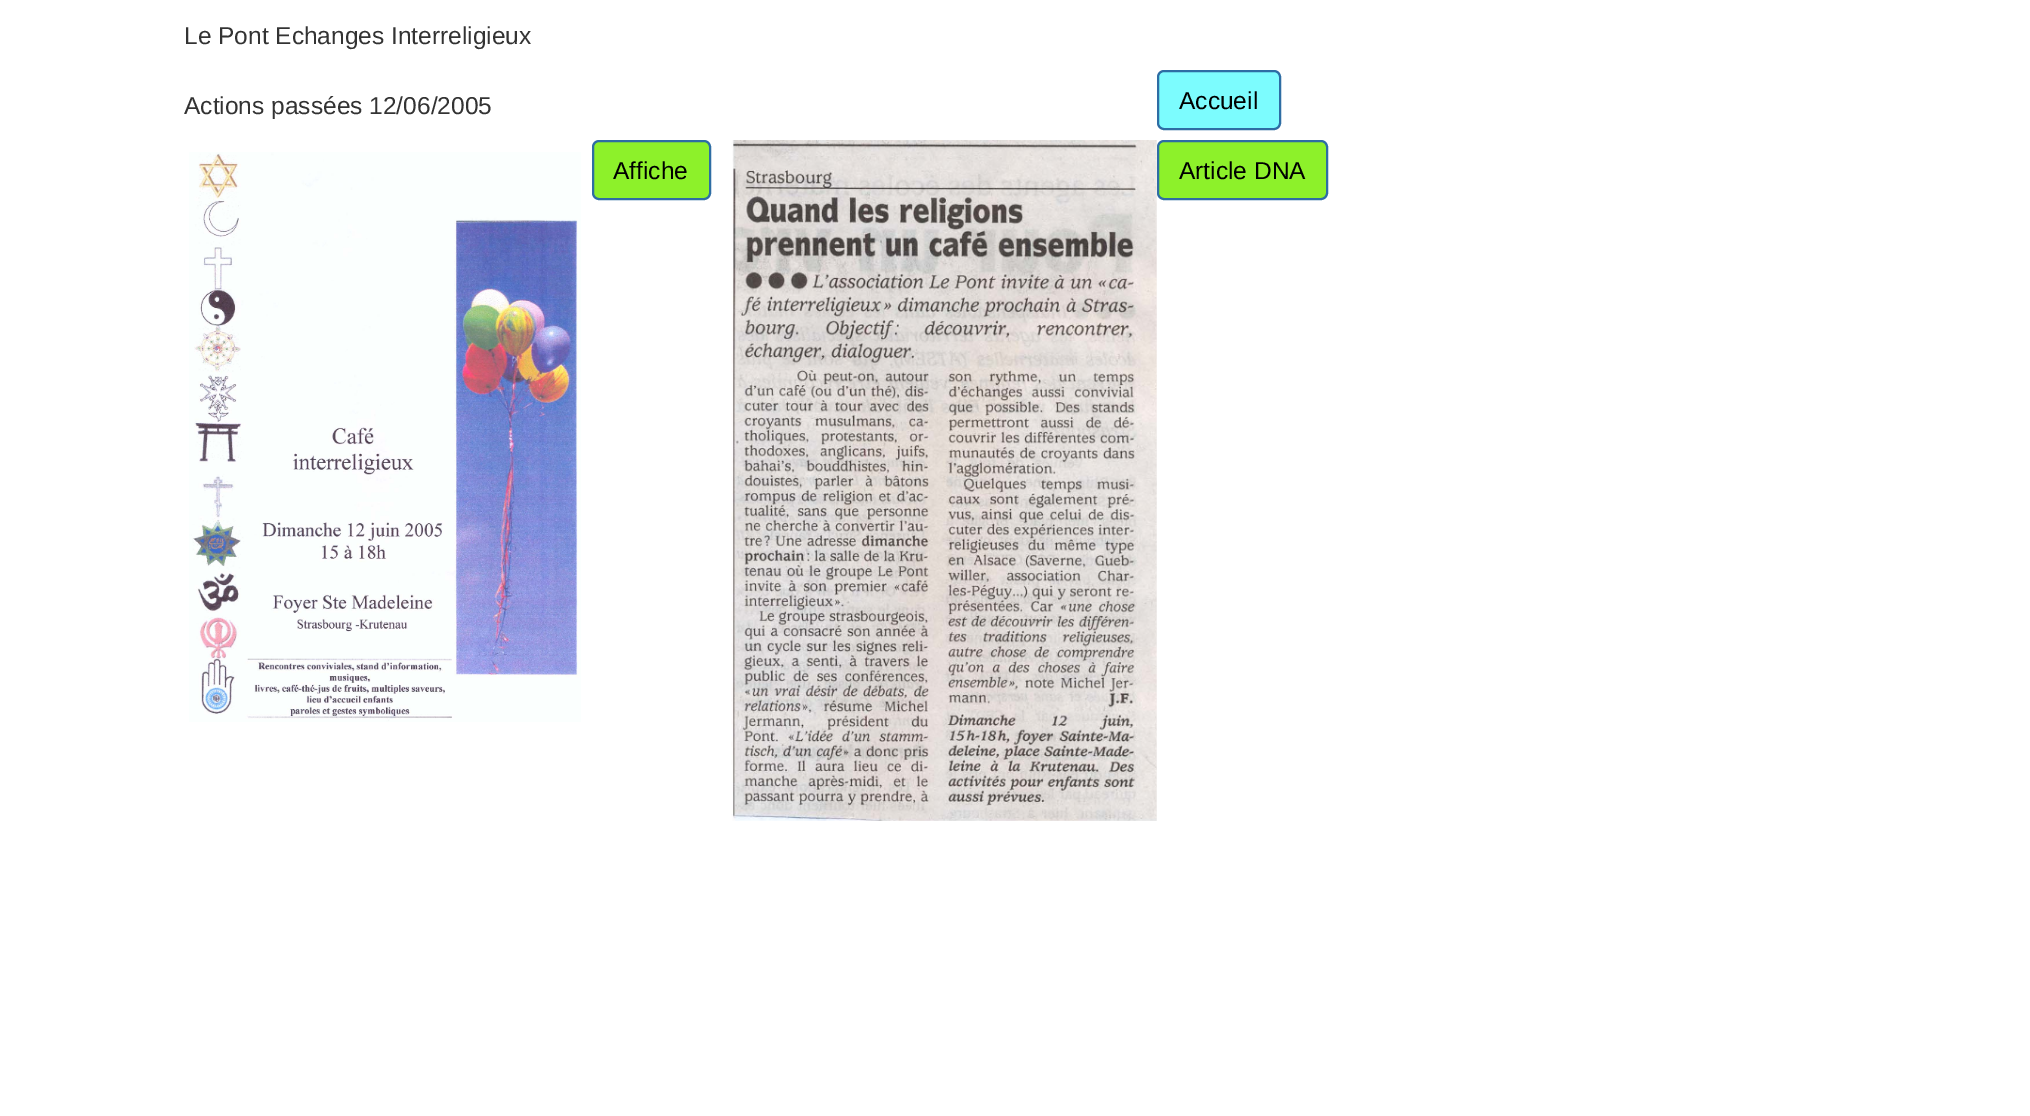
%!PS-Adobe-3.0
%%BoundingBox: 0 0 2030 1116
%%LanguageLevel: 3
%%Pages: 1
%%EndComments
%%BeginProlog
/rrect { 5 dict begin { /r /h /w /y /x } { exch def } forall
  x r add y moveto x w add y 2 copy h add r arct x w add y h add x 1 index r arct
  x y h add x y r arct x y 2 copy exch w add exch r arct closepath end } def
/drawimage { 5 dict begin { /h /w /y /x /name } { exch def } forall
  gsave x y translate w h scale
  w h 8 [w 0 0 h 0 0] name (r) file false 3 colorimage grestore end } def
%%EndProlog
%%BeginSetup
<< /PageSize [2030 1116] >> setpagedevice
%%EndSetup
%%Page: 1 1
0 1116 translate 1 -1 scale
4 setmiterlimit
1 setgray
0 0 2030 1116 rectfill
0.486 0.988 0.996 setrgbcolor
1158 71 122 58 6 rrect gsave fill grestore
0.18 0.427 0.643 setrgbcolor
2 setlinewidth
stroke
(images/1.raw) 189 152 392 570 drawimage
0.553 0.945 0.165 setrgbcolor
593 141 117 58 6 rrect gsave fill grestore
0.18 0.427 0.643 setrgbcolor
stroke
(images/2.raw) 731 140 426 681 drawimage
0.553 0.945 0.165 setrgbcolor
1158 141 169 58 6 rrect gsave fill grestore
0.18 0.427 0.643 setrgbcolor
stroke
/LiberationSans-Regular [24.5 0 0 -24.5 0 0] selectfont
0.2 setgray
184 44 moveto (Le Pont Echanges Interreligieux) show
184 114 moveto (Actions passées 12/06/2005) show
0 setgray
1179 109 moveto (Accueil) show
613 179 moveto (Affiche) show
1179 179 moveto (Article DNA) show
showpage
%%EOF
